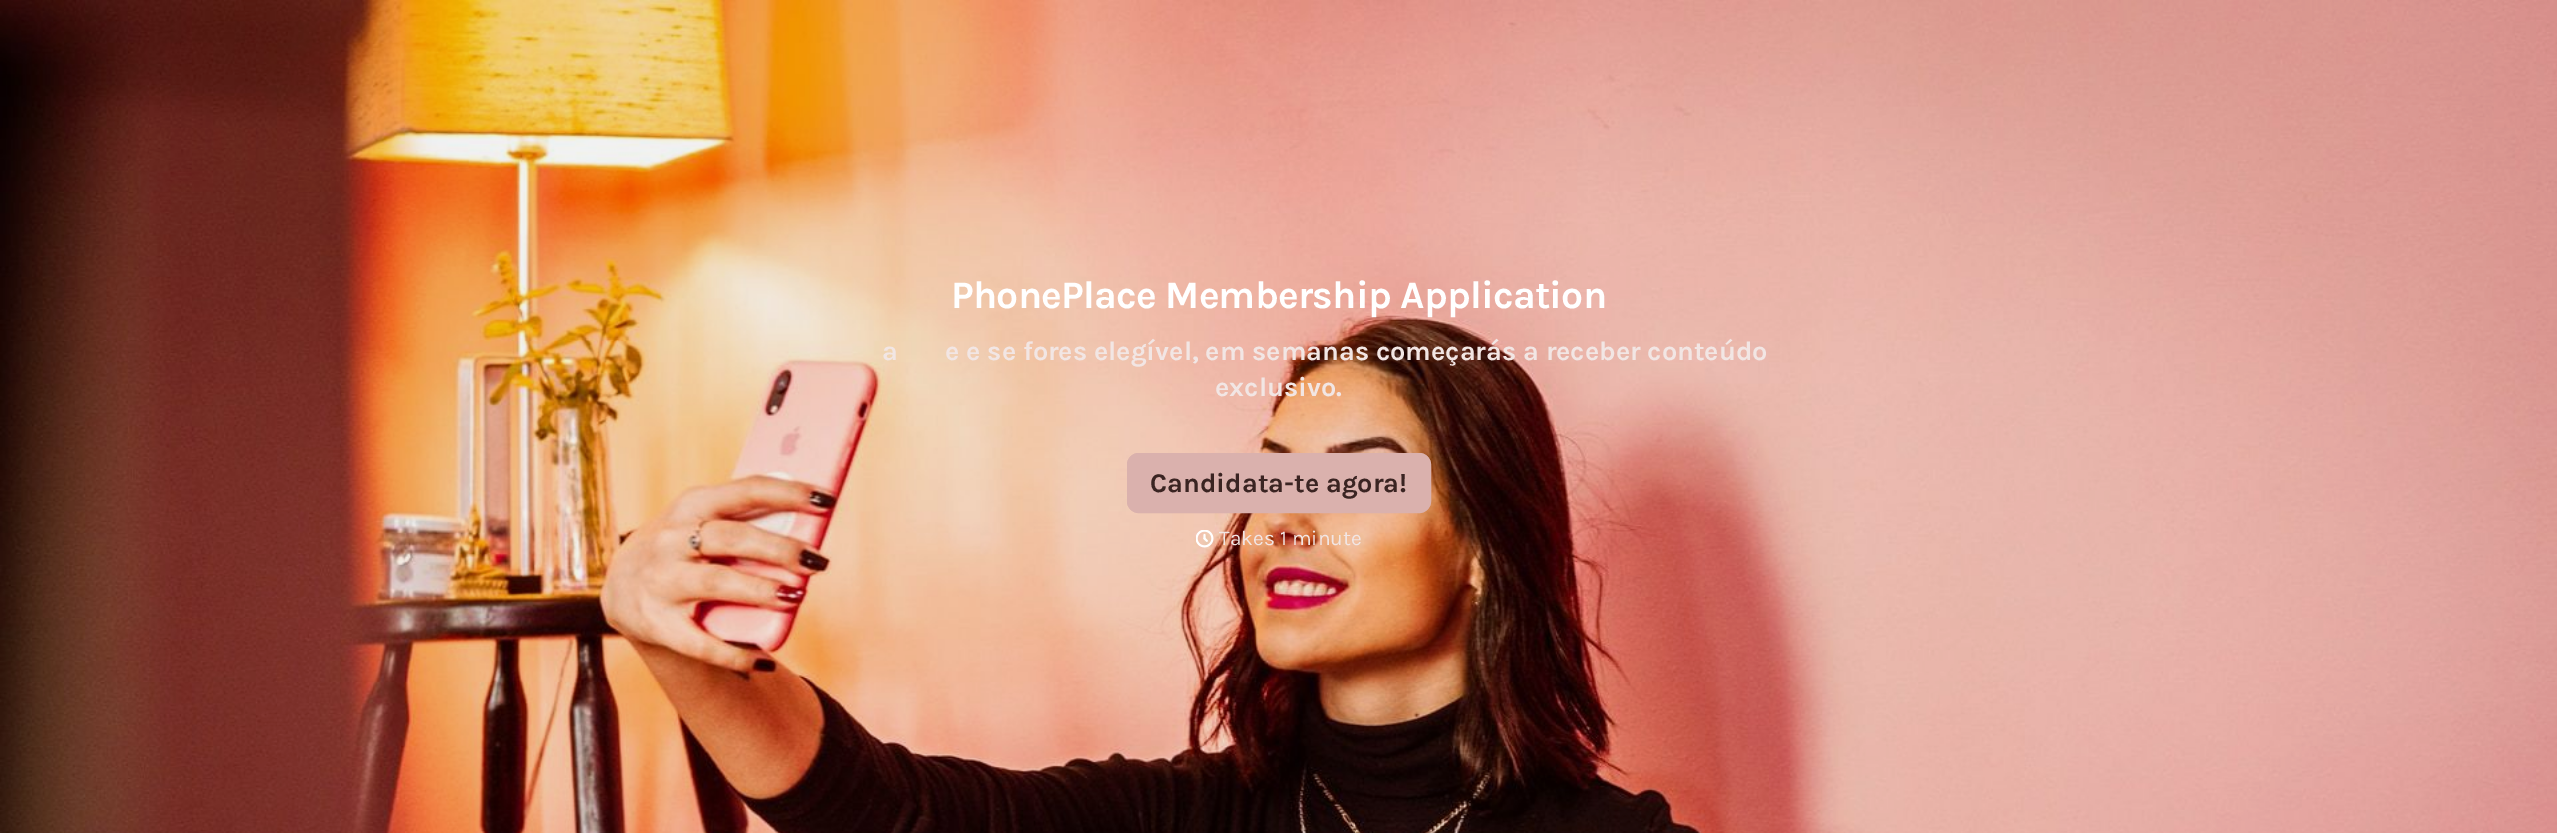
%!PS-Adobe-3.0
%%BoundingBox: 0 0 2557 833
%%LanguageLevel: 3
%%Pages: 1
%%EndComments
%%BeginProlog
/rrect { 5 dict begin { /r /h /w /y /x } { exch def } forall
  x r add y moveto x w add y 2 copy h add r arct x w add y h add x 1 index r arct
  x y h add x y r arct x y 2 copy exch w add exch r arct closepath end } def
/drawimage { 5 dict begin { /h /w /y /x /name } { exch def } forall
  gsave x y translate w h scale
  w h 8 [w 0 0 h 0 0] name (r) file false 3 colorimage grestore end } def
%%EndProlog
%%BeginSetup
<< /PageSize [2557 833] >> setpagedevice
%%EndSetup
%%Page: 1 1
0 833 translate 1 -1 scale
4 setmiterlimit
1 setgray
0 0 2557 833 rectfill
(images/1.raw) 0 0 2557 833 drawimage
0.855 0.694 0.678 setrgbcolor
2 setlinewidth
1128 454 302 58 11 rrect stroke
1127 453 304 60 12 rrect fill
(images/2.raw) 1196 530 18 18 drawimage
/Karla-Bold [39 0 0 -39 0 0] selectfont
1 setgray
951 308 moveto -0.75 0 (PhonePlace Membership Application) ashow
/Karla-Bold [27 0 0 -27 0 0] selectfont
0.949 0.902 0.894 setrgbcolor
882 360 moveto (a) show
945 360 moveto (e e se fores elegível, em semanas começarás a receber conteúdo) show
1215 396 moveto (exclusivo.) show
0.227 0.141 0.133 setrgbcolor
1150 492 moveto (Candidata-te agora!) show
/Karla-Regular [21 0 0 -21 0 0] selectfont
0.949 0.902 0.894 setrgbcolor
1219 545 moveto (Takes 1 minute) show
showpage
%%EOF
